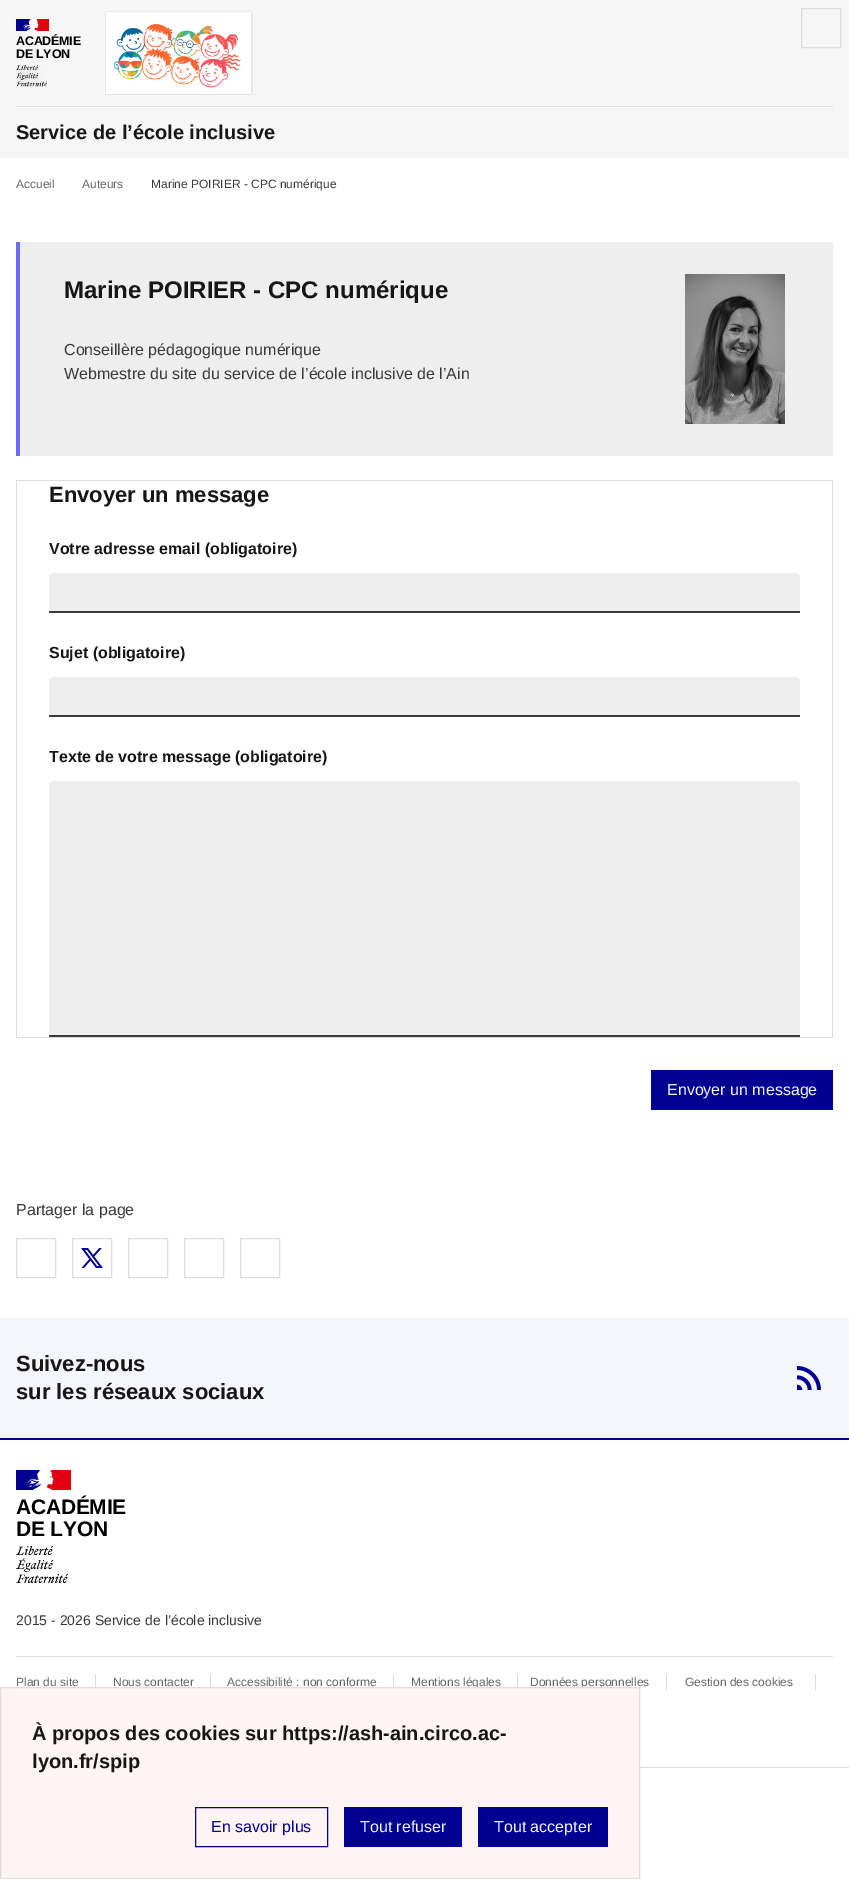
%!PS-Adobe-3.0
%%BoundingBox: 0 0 849 1879
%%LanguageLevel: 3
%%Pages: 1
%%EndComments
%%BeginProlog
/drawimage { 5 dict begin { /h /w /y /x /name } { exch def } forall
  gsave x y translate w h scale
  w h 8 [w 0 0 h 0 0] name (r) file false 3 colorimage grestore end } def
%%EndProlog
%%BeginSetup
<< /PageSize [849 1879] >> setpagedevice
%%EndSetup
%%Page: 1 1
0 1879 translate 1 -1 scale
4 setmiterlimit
1 setgray
0 0 849 1879 rectfill
0.965 setgray
0 0 849 158 rectfill
0 0 0.569 setrgbcolor
16 19 16 12 rectfill
0.882 0 0.059 setrgbcolor
34 19 15 12 rectfill
(images/1.raw) 23 19 16 12 drawimage
(images/2.raw) 16 65 31 22 drawimage
(images/3.raw) 105 11 148 84 drawimage
0.867 setgray
801.5 8.5 39 39 rectstroke
16 106 817 1 rectfill
0.933 setgray
20 242 813 214 rectfill
0.416 0.416 0.957 setrgbcolor
16 242 4 214 rectfill
(images/4.raw) 685 274 100 150 drawimage
0.867 setgray
16 480 817 1 rectfill
832 480 1 558 rectfill
16 480 1 558 rectfill
16 1037 817 1 rectfill
0.933 setgray
newpath 53 573 moveto 796 573 lineto 798 573 800 575 800 577 curveto 800 613 lineto 49 613 lineto 49 577 lineto 49 575 51 573 53 573 curveto closepath fill
0.227 setgray
49 611 751 2 rectfill
0.933 setgray
newpath 53 677 moveto 796 677 lineto 798 677 800 679 800 681 curveto 800 717 lineto 49 717 lineto 49 681 lineto 49 679 51 677 53 677 curveto closepath fill
0.227 setgray
49 715 751 2 rectfill
0.933 setgray
newpath 53 781 moveto 796 781 lineto 798 781 800 783 800 785 curveto 800 1037 lineto 49 1037 lineto 49 785 lineto 49 783 51 781 53 781 curveto closepath fill
0.227 setgray
49 1035 751 2 rectfill
0 0 0.569 setrgbcolor
651 1070 182 40 rectfill
0.867 setgray
16.5 1238.5 39 39 rectstroke
72.5 1238.5 39 39 rectstroke
(images/5.raw) 81 1248 22 20 drawimage
128.5 1238.5 39 39 rectstroke
184.5 1238.5 39 39 rectstroke
240.5 1238.5 39 39 rectstroke
0.961 0.961 0.996 setrgbcolor
0 1318 849 120 rectfill
(images/6.raw) 797 1366 24 24 drawimage
0.867 setgray
640 1767 209 1 rectfill
0 0 0.569 setrgbcolor
0 1438 849 2 rectfill
16 1470 26 20 rectfill
0.882 0 0.059 setrgbcolor
47 1470 24 20 rectfill
(images/7.raw) 27 1470 27 20 drawimage
(images/8.raw) 16 1546 52 38 drawimage
0.867 setgray
16 1656 817 1 rectfill
95 1674 1 16 rectfill
210 1674 1 16 rectfill
393 1674 1 16 rectfill
517 1674 1 16 rectfill
666 1674 1 16 rectfill
815 1674 1 16 rectfill
/LiberationSans-Bold [12.5 0 0 -12.5 0 0] selectfont
0 setgray
16 45 moveto -0.25 0 (ACADÉMIE) ashow
16 58 moveto -0.25 0 (DE LYON) ashow
/LiberationSans-Bold [20 0 0 -20 0 0] selectfont
0.086 setgray
16 139 moveto (Service de l’école inclusive) show
/LiberationSans-Regular [12 0 0 -12 0 0] selectfont
0.4 setgray
16 188 moveto (Accueil) show
82 188 moveto (Auteurs) show
0.227 setgray
151 188 moveto (Marine POIRIER - CPC numérique) show
/LiberationSans-Bold [24 0 0 -24 0 0] selectfont
0.086 setgray
64 298 moveto (Marine POIRIER - CPC numérique) show
/LiberationSans-Regular [16 0 0 -16 0 0] selectfont
0.227 setgray
64 355 moveto (Conseillère pédagogique numérique) show
64 379 moveto (Webmestre du site du service de l’école inclusive de l’Ain) show
/LiberationSans-Bold [22 0 0 -22 0 0] selectfont
0.086 setgray
49 502 moveto (Envoyer un message) show
/LiberationSans-Bold [16 0 0 -16 0 0] selectfont
49 554 moveto (Votre adresse email \(obligatoire\)) show
49 658 moveto (Sujet \(obligatoire\)) show
49 762 moveto (Texte de votre message \(obligatoire\)) show
/LiberationSans-Regular [16 0 0 -16 0 0] selectfont
0.961 0.961 0.996 setrgbcolor
667 1095 moveto (Envoyer un message) show
0.227 setgray
16 1215 moveto (Partager la page) show
/LiberationSans-Bold [22 0 0 -22 0 0] selectfont
0.086 setgray
16 1371 moveto (Suivez-nous) show
16 1399 moveto (sur les réseaux sociaux) show
/LiberationSans-Bold [21 0 0 -21 0 0] selectfont
0 setgray
16 1514 moveto -0.25 0 (ACADÉMIE) ashow
16 1536 moveto -0.25 0 (DE LYON) ashow
/LiberationSans-Regular [14 0 0 -14 0 0] selectfont
0.227 setgray
16 1625 moveto (2015 - 2026 Service de l’école inclusive) show
/LiberationSans-Regular [12 0 0 -12 0 0] selectfont
0.4 setgray
16 1686 moveto (Plan du site) show
113 1686 moveto (Nous contacter) show
227 1686 moveto (Accessibilité : non conforme) show
411 1686 moveto (Mentions légales) show
530 1686 moveto (Données personnelles) show
685 1686 moveto (Gestion des cookies) show
0.996 0.957 0.957 setrgbcolor
newpath 0.5 1687.5 moveto 639.5 1687.5 lineto 639.5 1878.5 lineto 0.5 1878.5 lineto closepath gsave fill grestore
0.867 setgray
stroke
/LiberationSans-Bold [20 0 0 -20 0 0] selectfont
0.086 setgray
32 1740 moveto (À propos des cookies sur https://ash-ain.circo.ac-) show
32 1768 moveto (lyon.fr/spip) show
0 0 0.569 setrgbcolor
195.5 1807.5 132 39 rectstroke
/LiberationSans-Regular [16 0 0 -16 0 0] selectfont
211 1832 moveto (En savoir plus) show
344 1807 118 40 rectfill
0.961 0.961 0.996 setrgbcolor
360 1832 moveto (Tout refuser) show
0 0 0.569 setrgbcolor
478 1807 130 40 rectfill
0.961 0.961 0.996 setrgbcolor
494 1832 moveto (Tout accepter) show
showpage
%%EOF
